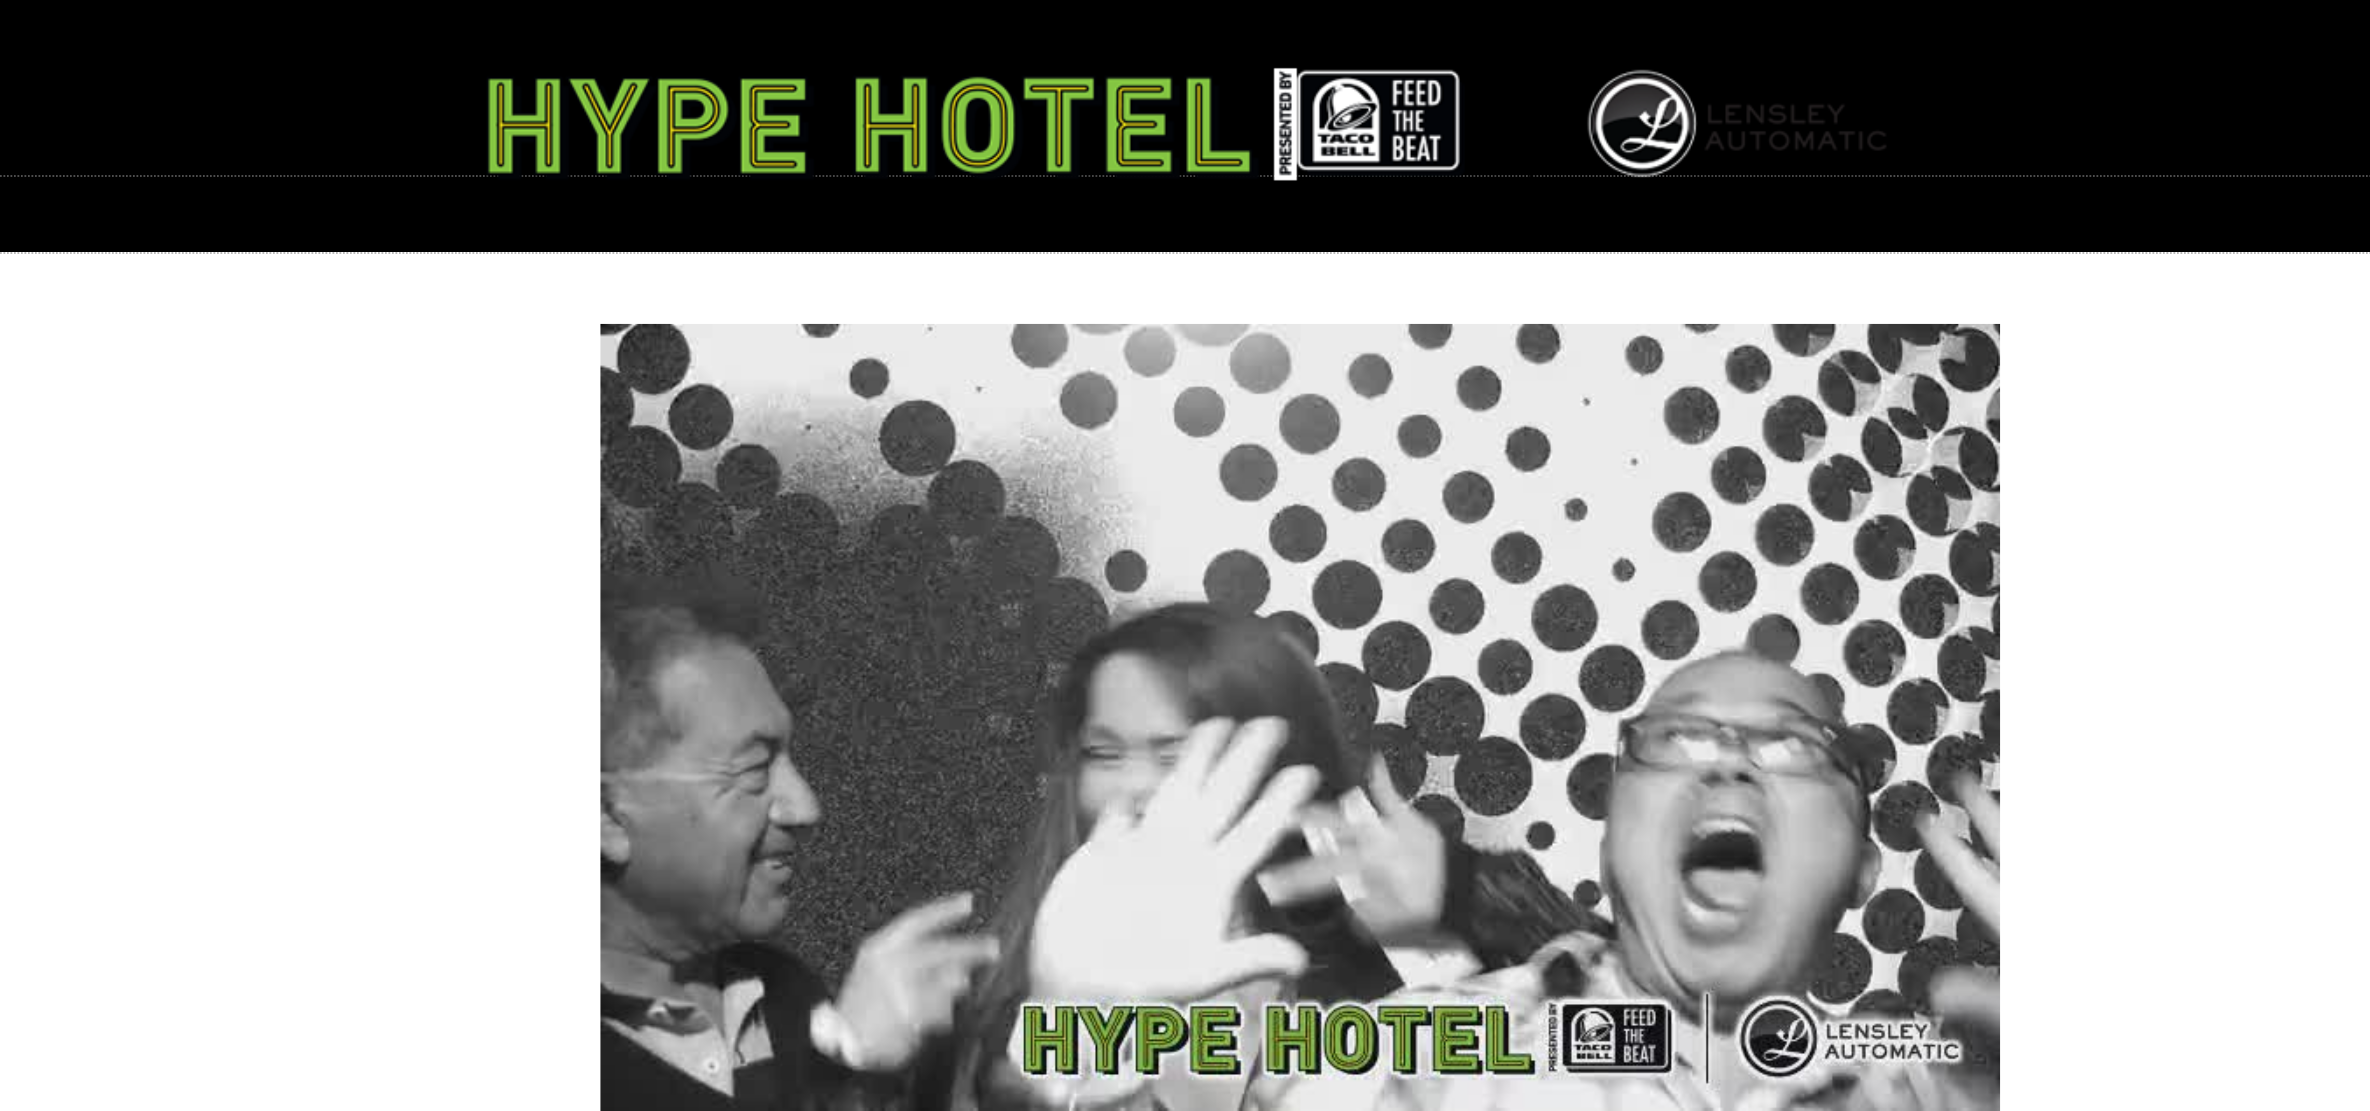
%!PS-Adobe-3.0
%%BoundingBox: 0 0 2370 1111
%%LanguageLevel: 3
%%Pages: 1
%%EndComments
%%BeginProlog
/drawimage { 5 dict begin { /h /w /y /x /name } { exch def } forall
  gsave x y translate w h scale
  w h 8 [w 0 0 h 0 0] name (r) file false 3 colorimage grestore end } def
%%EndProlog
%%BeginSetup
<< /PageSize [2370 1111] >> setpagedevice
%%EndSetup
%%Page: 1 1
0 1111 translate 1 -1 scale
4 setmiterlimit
1 setgray
0 0 2370 1111 rectfill
0 setgray
0 0 2370 252 rectfill
0.302 setgray
1.8 setlinewidth
[1.75 1.75] 0 setdash
newpath 0 176 moveto 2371 176 lineto stroke
(images/1.raw) 486 67 1401 114 drawimage
0.733 setgray
newpath 0 253 moveto 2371 253 lineto stroke
(images/2.raw) 600 323 1401 788 drawimage
showpage
%%EOF
